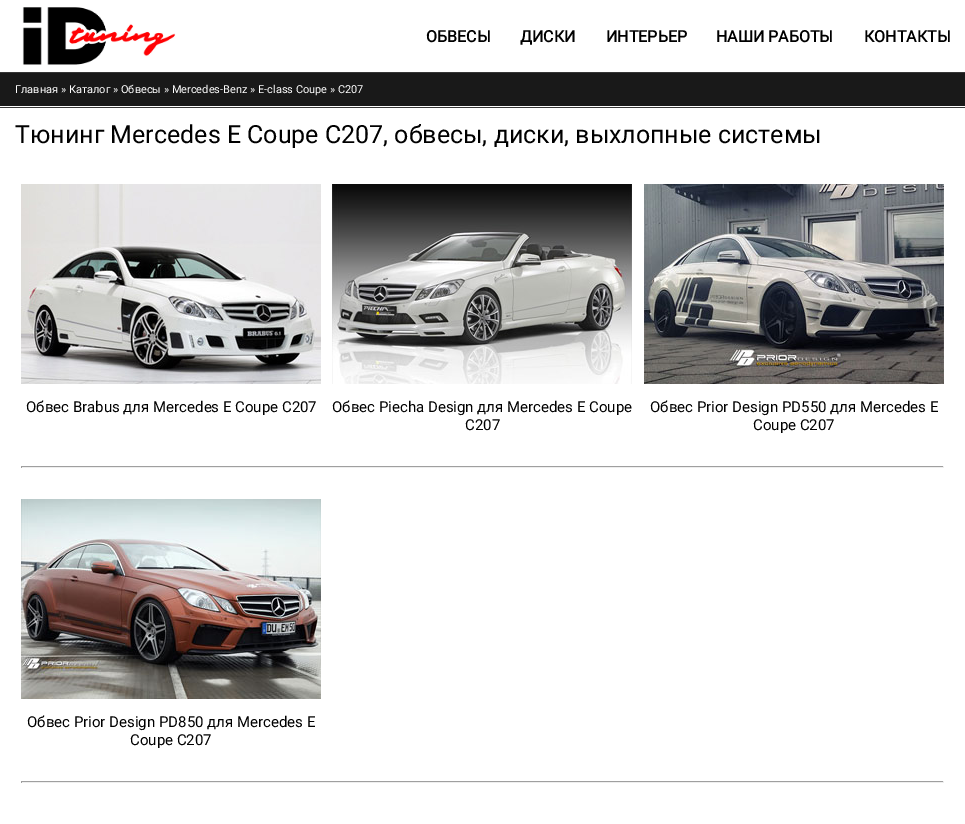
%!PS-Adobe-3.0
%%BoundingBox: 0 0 965 824
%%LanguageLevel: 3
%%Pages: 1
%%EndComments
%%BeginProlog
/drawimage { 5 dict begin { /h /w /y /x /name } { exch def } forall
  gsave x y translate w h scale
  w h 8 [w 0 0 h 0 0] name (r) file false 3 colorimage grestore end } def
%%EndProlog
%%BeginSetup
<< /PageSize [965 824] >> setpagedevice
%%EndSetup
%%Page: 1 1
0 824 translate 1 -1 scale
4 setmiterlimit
1 setgray
0 0 965 824 rectfill
0.212 setgray
0 72 965 1 rectfill
(images/1.raw) 22 7 154 58 drawimage
0.098 setgray
0 73 965 33 rectfill
0.212 setgray
0 107 965 1 rectfill
(images/2.raw) 21 184 300 200 drawimage
(images/3.raw) 332 184 300 200 drawimage
(images/4.raw) 644 184 300 200 drawimage
0.624 setgray
21 466 923 1 rectfill
0.933 setgray
943 466 1 2 rectfill
21 467 923 1 rectfill
0.624 setgray
21 466 1 2 rectfill
(images/5.raw) 21 499 300 200 drawimage
21 781 923 1 rectfill
0.933 setgray
943 781 1 2 rectfill
21 782 923 1 rectfill
0.624 setgray
21 781 1 2 rectfill
/Roboto-Bold [16 0 0 -16 0 0] selectfont
0 setgray
426 42 moveto (ОБВЕСЫ) show
520 42 moveto (ДИСКИ) show
606 42 moveto (ИНТЕРЬЕР) show
716 42 moveto (НАШИ РАБОТЫ) show
864 42 moveto (КОНТАКТЫ) show
/Roboto-Regular [11 0 0 -11 0 0] selectfont
1 setgray
15 93 moveto (Главная » Каталог » Обвесы » Mercedes-Benz » E-class Coupe » C207) show
/Roboto-Regular [25 0 0 -25 0 0] selectfont
0 setgray
15 143 moveto (Тюнинг Mercedes E Coupe C207, обвесы, диски, выхлопные системы) show
/Roboto-Regular [15 0 0 -15 0 0] selectfont
26 412 moveto (Обвес Brabus для Mercedes E Coupe C207) show
332 412 moveto (Обвес Piecha Design для Mercedes E Coupe) show
465 430 moveto (C207) show
650 412 moveto (Обвес Prior Design PD550 для Mercedes E) show
753 430 moveto (Coupe C207) show
27 727 moveto (Обвес Prior Design PD850 для Mercedes E) show
130 745 moveto (Coupe C207) show
showpage
%%EOF
